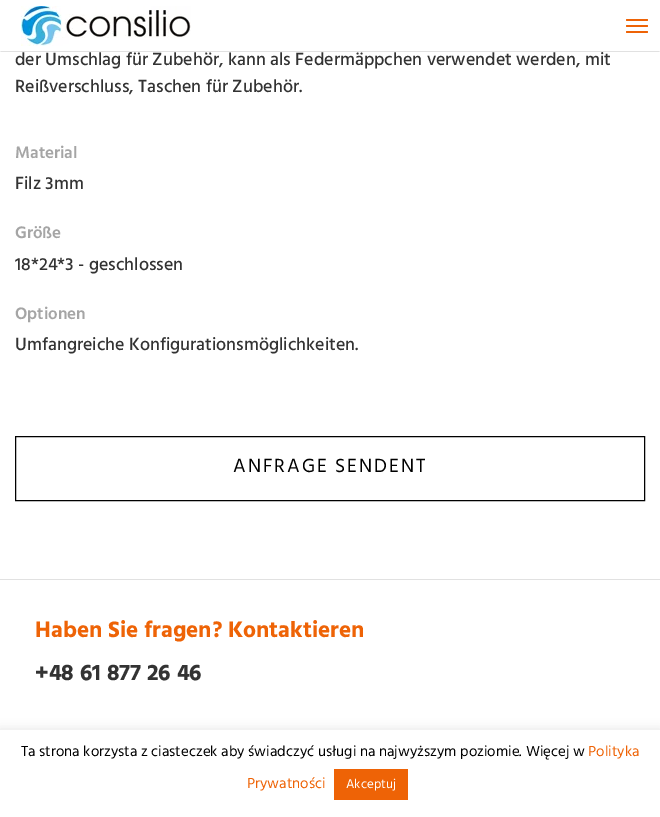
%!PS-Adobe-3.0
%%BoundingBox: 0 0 660 817
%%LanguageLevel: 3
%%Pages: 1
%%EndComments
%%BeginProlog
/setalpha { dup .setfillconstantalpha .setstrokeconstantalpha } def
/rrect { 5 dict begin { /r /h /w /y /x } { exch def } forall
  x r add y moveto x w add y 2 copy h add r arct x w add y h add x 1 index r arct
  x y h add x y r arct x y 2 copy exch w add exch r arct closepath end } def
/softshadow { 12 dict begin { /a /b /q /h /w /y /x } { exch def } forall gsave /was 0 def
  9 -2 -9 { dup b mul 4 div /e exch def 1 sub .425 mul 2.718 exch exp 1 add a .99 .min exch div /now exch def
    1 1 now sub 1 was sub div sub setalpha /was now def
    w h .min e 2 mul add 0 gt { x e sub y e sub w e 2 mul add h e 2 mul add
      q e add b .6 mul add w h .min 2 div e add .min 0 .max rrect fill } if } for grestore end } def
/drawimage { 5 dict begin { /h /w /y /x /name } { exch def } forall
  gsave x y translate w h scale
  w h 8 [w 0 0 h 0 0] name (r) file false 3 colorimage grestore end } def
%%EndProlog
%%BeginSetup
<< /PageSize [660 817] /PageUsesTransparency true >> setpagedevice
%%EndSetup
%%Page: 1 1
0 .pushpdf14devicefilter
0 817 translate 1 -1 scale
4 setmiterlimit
1 setgray
0 0 660 817 rectfill
0.882 setgray
newpath 660 52 moveto 0 52 lineto 1 51 lineto 659 51 lineto closepath fill
(images/1.raw) 21 6 170 40 drawimage
0.933 0.388 0.024 setrgbcolor
626 19 22 2 1 rrect fill
626 25 22 2 1 rrect fill
626 31 22 2 1 rrect fill
0 setgray
15.5 436.5 629 64 rectstroke
0.882 setgray
0 579 660 1 rectfill
0.675 0.671 0.671 setrgbcolor
0 729 660 87 0 5 0.3 softshadow
1 setgray
0 730 660 87 rectfill
0.933 0.388 0.024 setrgbcolor
334 769 74 31 rectfill
/Hind-Medium [18 0 0 -18 0 0] selectfont
0.2 setgray
15 65 moveto (der Umschlag für Zubehör, kann als Federmäppchen verwendet werden, mit) show
15 92 moveto (Reißverschluss, Taschen für Zubehör.) show
/Hind-SemiBold [17 0 0 -17 0 0] selectfont
0.647 setgray
15 158 moveto (Material) show
/Hind-Medium [18 0 0 -18 0 0] selectfont
0.2 setgray
15 189 moveto (Filz 3mm) show
/Hind-SemiBold [17 0 0 -17 0 0] selectfont
0.647 setgray
15 238 moveto (Größe) show
/Hind-Medium [18 0 0 -18 0 0] selectfont
0.2 setgray
15 270 moveto (18*24*3 - geschlossen) show
/Hind-SemiBold [17 0 0 -17 0 0] selectfont
0.647 setgray
15 319 moveto (Optionen) show
/Hind-Medium [18 0 0 -18 0 0] selectfont
0.2 setgray
15 350 moveto (Umfangreiche Konfigurationsmöglichkeiten.) show
/Hind-Regular [19.5 0 0 -19.5 0 0] selectfont
0 setgray
233 472 moveto 2 0 (ANFRAGE SENDENT) ashow
/Hind-Bold [23 0 0 -23 0 0] selectfont
0.933 0.388 0.024 setrgbcolor
35 637 moveto (Haben Sie fragen? Kontaktieren) show
0.2 setgray
35 680 moveto (+48 61 877 26 46) show
/Hind-Regular [15 0 0 -15 0 0] selectfont
0 setgray
21 756 moveto (Ta strona korzysta z ciasteczek aby świadczyć usługi na najwyższym poziomie. Więcej w) show
0.933 0.388 0.024 setrgbcolor
588 756 moveto (Polityka) show
247 788 moveto (Prywatności) show
/Hind-Regular [13 0 0 -13 0 0] selectfont
1 setgray
346 788 moveto (Akceptuj) show
.poppdf14devicefilter showpage
%%EOF
